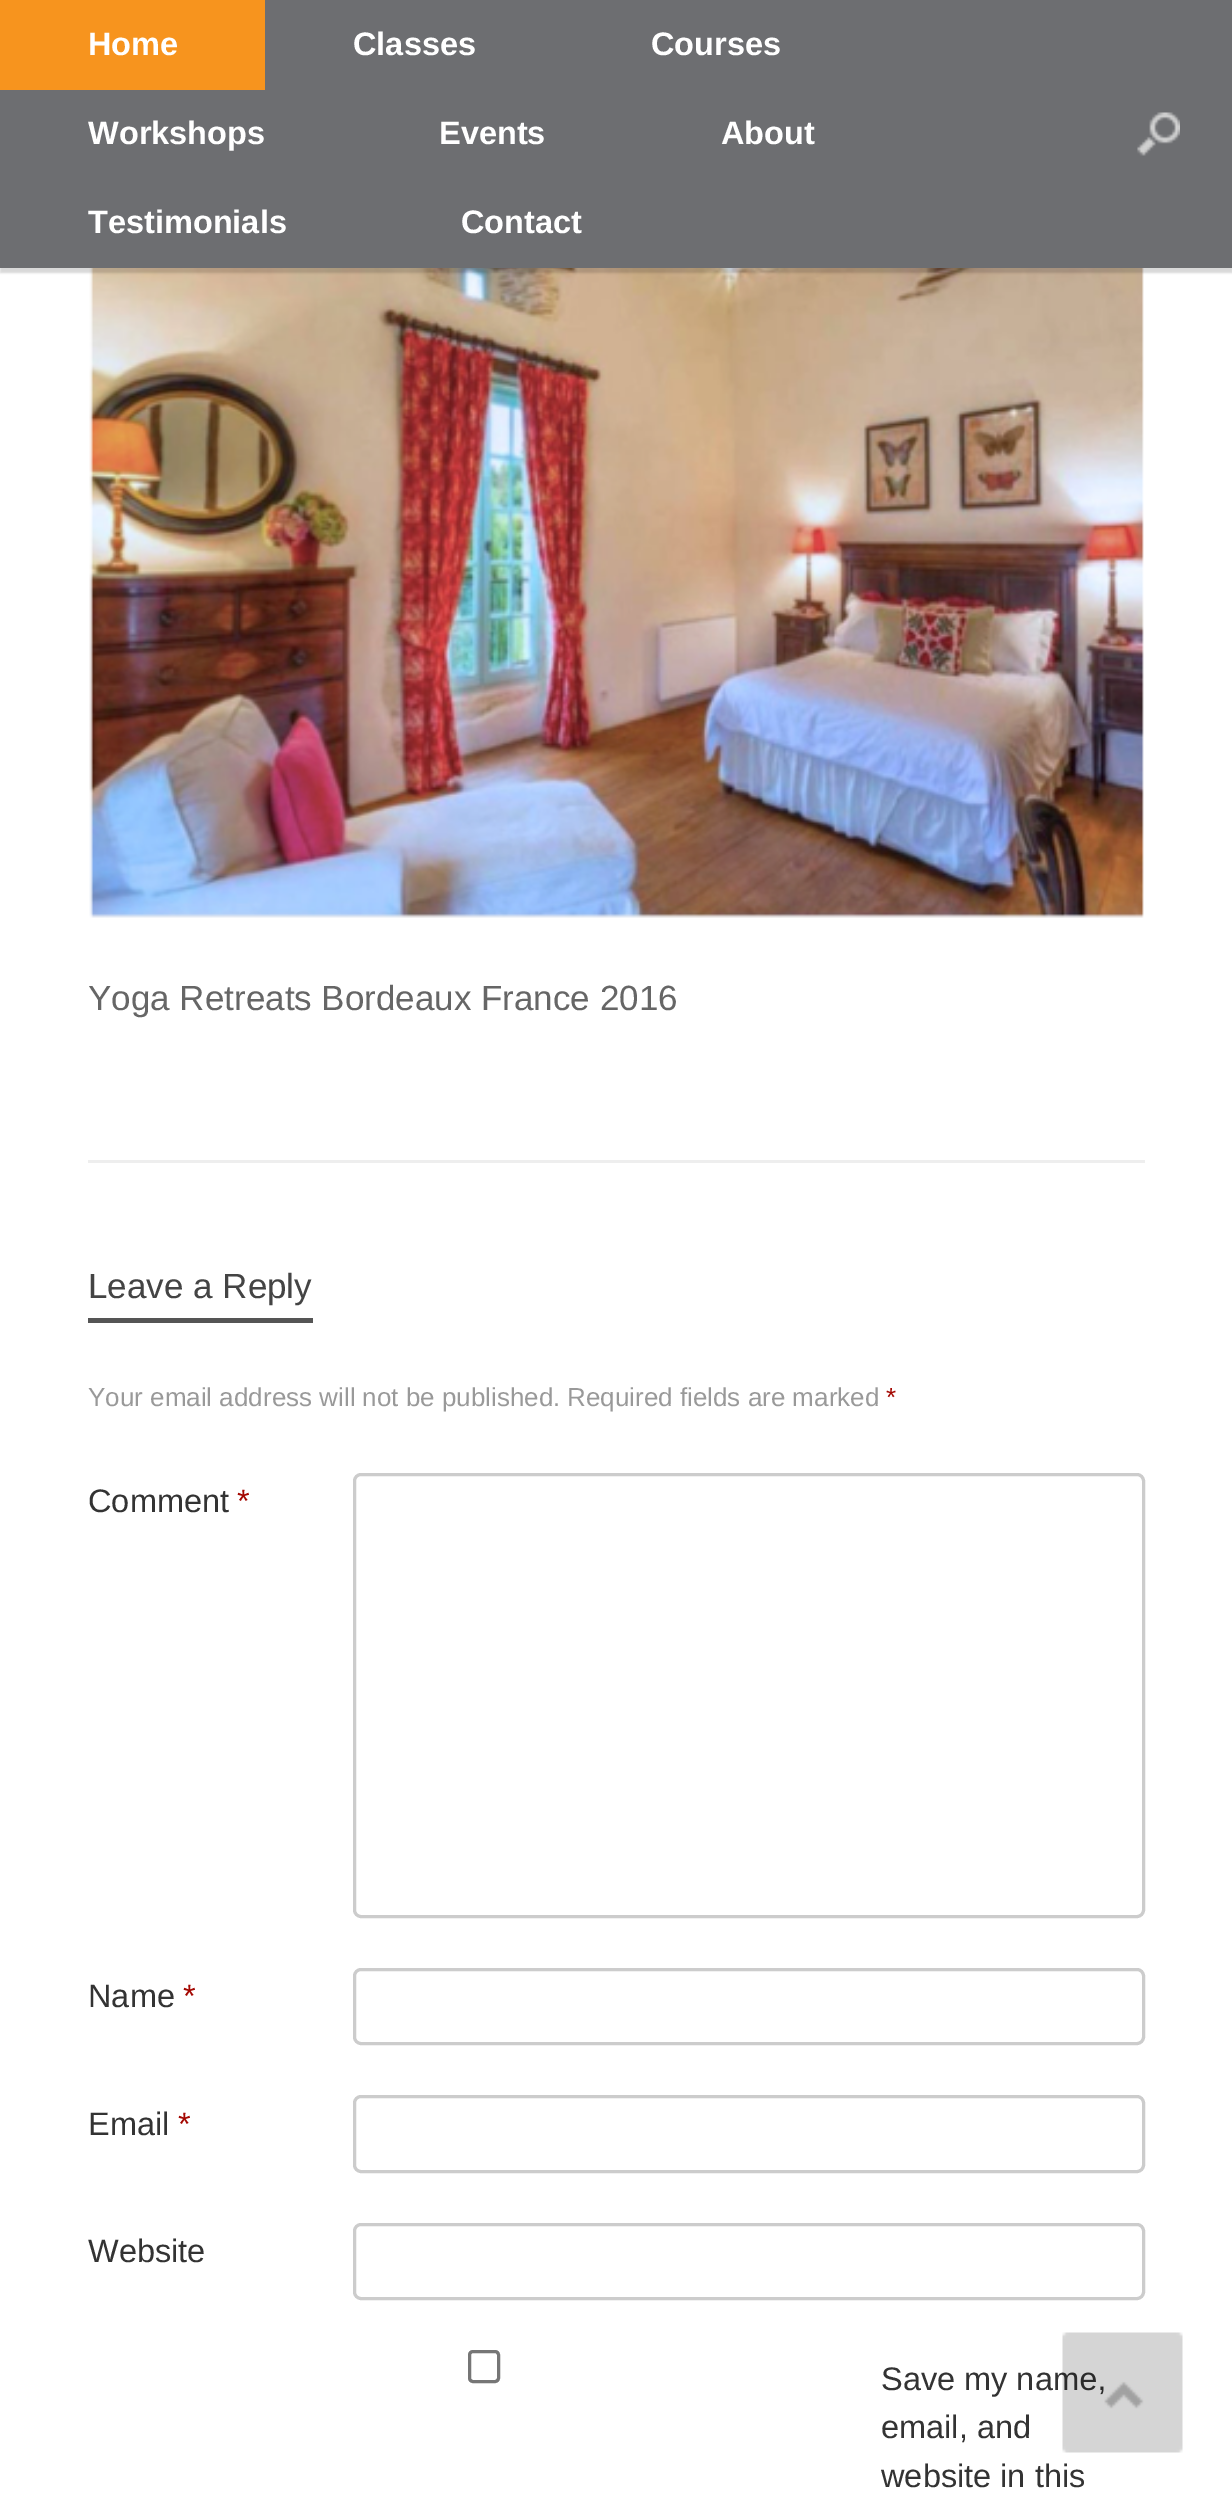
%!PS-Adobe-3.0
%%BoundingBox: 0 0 1232 2501
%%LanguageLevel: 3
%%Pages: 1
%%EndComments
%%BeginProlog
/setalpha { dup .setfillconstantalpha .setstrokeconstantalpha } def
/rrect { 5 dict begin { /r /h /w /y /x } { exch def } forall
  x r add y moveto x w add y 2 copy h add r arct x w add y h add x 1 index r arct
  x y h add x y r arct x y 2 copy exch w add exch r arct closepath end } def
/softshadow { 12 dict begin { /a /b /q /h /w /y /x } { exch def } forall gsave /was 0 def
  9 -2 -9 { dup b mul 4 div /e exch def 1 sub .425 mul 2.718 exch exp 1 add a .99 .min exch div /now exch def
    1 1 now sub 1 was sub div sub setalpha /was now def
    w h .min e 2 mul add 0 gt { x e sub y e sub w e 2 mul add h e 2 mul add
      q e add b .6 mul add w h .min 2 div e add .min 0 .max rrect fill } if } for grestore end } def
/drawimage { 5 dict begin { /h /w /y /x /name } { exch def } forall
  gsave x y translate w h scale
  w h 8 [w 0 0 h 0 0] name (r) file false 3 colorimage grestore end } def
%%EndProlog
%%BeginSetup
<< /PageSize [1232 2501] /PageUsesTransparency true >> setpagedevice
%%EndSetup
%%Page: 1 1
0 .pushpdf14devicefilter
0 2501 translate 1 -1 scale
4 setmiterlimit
1 setgray
0 0 1232 2501 rectfill
(images/2.raw) 89 268 1055 650 drawimage
0 setgray
0 5 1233 268 0 1 0.15 softshadow
0.427 0.431 0.443 setrgbcolor
0 0 1232 268 rectfill
0.969 0.58 0.118 setrgbcolor
0 0 265 90 rectfill
(images/1.raw) 1137 112 43 44 drawimage
0.933 setgray
88 1160 1057 3 rectfill
0.333 setgray
88 1318 225 5 rectfill
0.8 setgray
3 setlinewidth
354.5 1474.5 789 442 6.5 rrect stroke
354.5 1969.5 789 74 6.5 rrect stroke
354.5 2096.5 789 75 6.5 rrect stroke
354.5 2224.5 789 74 6.5 rrect stroke
0.463 setgray
469.5 2351.5 29 30 3.5 rrect stroke
/LiberationSans-Bold [32.5 0 0 -32.5 0 0] selectfont
1 setgray
88 55 moveto (Home) show
353 55 moveto (Classes) show
651 55 moveto (Courses) show
88 144 moveto (Workshops) show
439 144 moveto (Events) show
721 144 moveto (About) show
88 233 moveto (Testimonials) show
461 233 moveto (Contact) show
/LiberationSans-Regular [35 0 0 -35 0 0] selectfont
0.4 setgray
88 1010 moveto (Yoga Retreats Bordeaux France 2016) show
0.267 setgray
88 1298 moveto (Leave a Reply) show
/LiberationSans-Regular [26 0 0 -26 0 0] selectfont
0.6 setgray
88 1406 moveto (Your email address will not be published.) show
567 1406 moveto (Required fields are marked) show
0.643 0.031 0.008 setrgbcolor
886 1406 moveto (*) show
/LiberationSans-Regular [32.5 0 0 -32.5 0 0] selectfont
0.2 setgray
88 1512 moveto (Comment) show
0.643 0.031 0.008 setrgbcolor
237 1512 moveto (*) show
0.2 setgray
88 2007 moveto (Name) show
0.643 0.031 0.008 setrgbcolor
183 2007 moveto (*) show
0.2 setgray
88 2135 moveto (Email) show
0.643 0.031 0.008 setrgbcolor
178 2135 moveto (*) show
0.2 setgray
88 2262 moveto (Website) show
881 2390 moveto (Save my name,) show
881 2438 moveto (email, and) show
881 2487 moveto (website in this) show
(images/3.raw) 1062 2332 121 121 drawimage
.poppdf14devicefilter showpage
%%EOF
